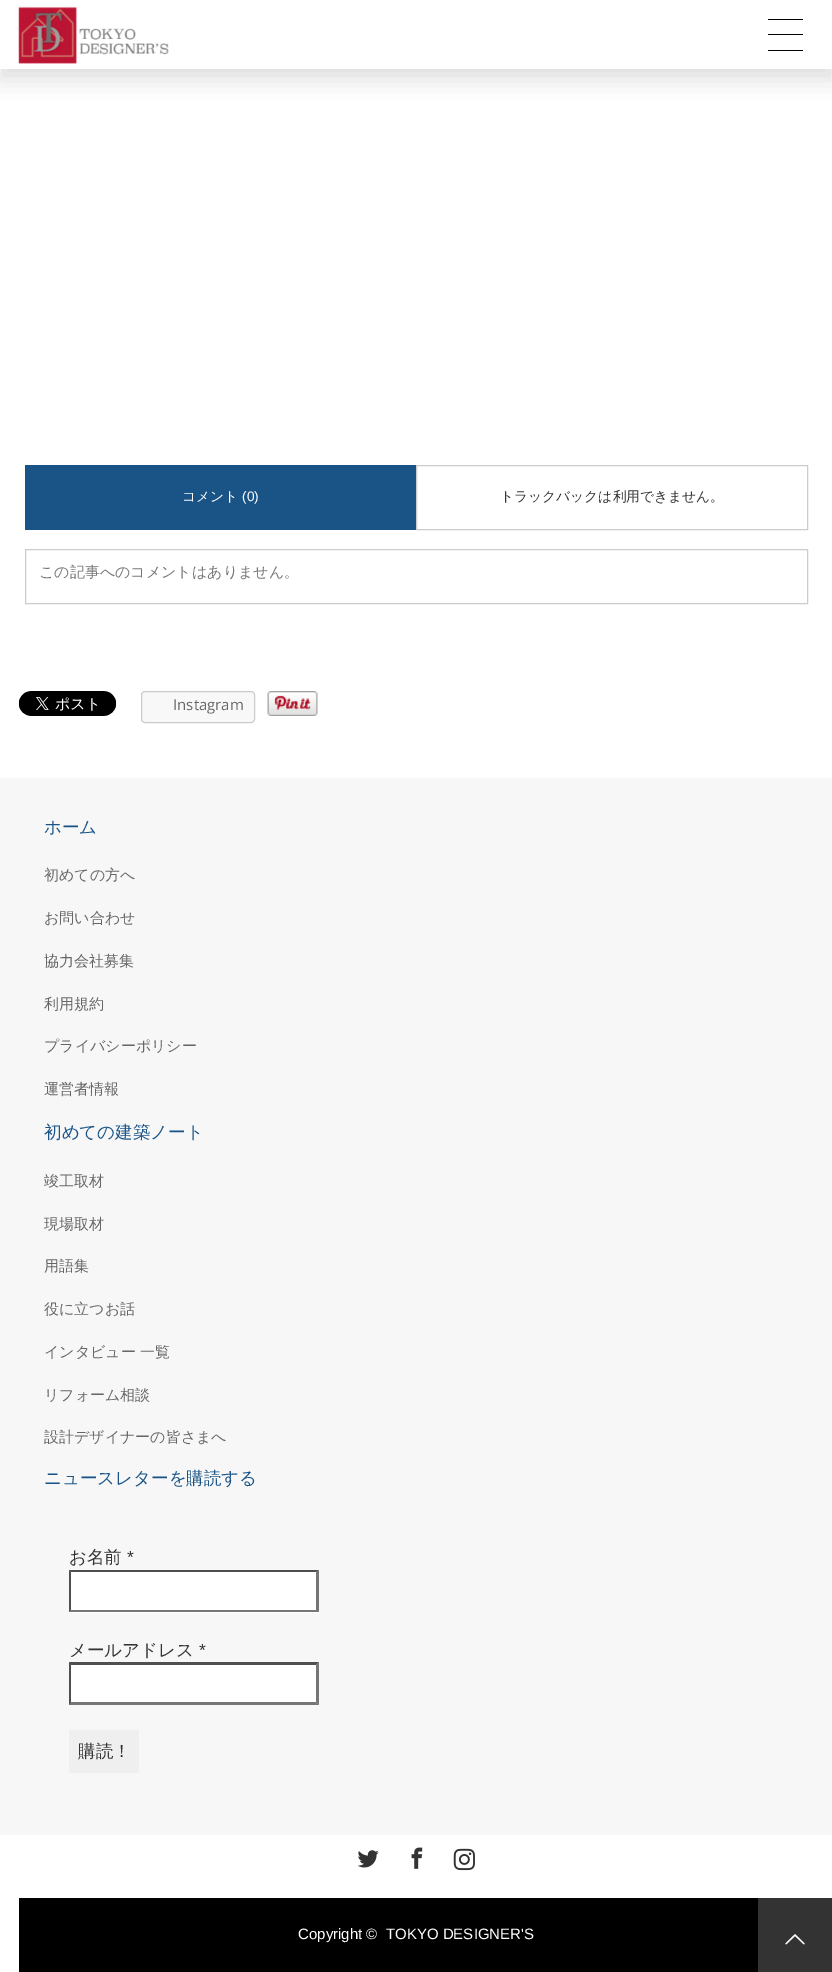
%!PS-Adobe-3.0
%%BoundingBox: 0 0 832 1972
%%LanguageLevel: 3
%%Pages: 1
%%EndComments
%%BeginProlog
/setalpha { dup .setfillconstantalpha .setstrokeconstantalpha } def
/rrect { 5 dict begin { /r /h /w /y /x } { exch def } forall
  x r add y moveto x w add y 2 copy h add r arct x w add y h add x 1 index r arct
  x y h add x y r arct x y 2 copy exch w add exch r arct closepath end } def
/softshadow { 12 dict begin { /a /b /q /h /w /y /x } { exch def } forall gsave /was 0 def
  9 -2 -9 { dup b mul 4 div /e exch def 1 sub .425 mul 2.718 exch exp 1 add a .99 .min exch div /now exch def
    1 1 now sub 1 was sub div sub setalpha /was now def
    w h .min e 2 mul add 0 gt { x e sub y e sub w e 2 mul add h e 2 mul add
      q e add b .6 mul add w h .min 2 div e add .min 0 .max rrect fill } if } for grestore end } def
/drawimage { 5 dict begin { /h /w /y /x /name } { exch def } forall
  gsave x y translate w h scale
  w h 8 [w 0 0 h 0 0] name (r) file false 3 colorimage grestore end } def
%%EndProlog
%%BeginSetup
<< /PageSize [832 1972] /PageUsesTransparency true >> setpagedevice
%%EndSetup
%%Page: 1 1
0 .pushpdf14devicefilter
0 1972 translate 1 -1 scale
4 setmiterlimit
1 setgray
0 0 832 1972 rectfill
0 setgray
-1 8 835 72 0 11 0.12 softshadow
1 setgray
0 0 832 69 rectfill
(images/1.raw) 18 6 151 58 drawimage
gsave newpath 768 34 moveto 803 34 lineto 803 35 lineto 768 35 lineto closepath clip newpath
<< /ShadingType 2 /ColorSpace /DeviceRGB /Coords [785 51 785 19] /Extend [true true] /Function << /FunctionType 3 /Domain [0 1] /Functions [<< /FunctionType 2 /Domain [0 1] /C0 [1 1 1] /C1 [1 1 1] /N 1 >> << /FunctionType 2 /Domain [0 1] /C0 [0 0 0] /C1 [0 0 0] /N 1 >> << /FunctionType 2 /Domain [0 1] /C0 [1 1 1] /C1 [1 1 1] /N 1 >> << /FunctionType 2 /Domain [0 1] /C0 [1 1 1] /C1 [1 1 1] /N 1 >>] /Bounds [0.5 0.54 0.69] /Encode [0 1 0 1 0 1 0 1] >> >> shfill grestore
0 setgray
768 19 35 1 rectfill
768 50 35 1 rectfill
0.102 0.329 0.529 setrgbcolor
25 465 391 65 rectfill
0.8 setgray
416.5 465.5 391 64 rectstroke
25.5 549.5 782 54 rectstroke
(images/2.raw) 18 691 99 25 drawimage
0.973 setgray
141.5 691.5 113 31 3.5 rrect gsave fill grestore
0.8 setgray
stroke
(images/3.raw) 267 691 51 25 drawimage
0.969 setgray
0 778 832 1057 rectfill
1 setgray
69 1570 250 43 rectfill
0.31 setgray
newpath 69 1570 moveto 319 1570 lineto 316 1572 lineto 71 1572 lineto closepath fill
0.463 setgray
newpath 319 1570 moveto 319 1612 lineto 316 1610 lineto 316 1572 lineto closepath fill
newpath 319 1612 moveto 69 1612 lineto 71 1610 lineto 316 1610 lineto closepath fill
0.31 setgray
newpath 69 1612 moveto 69 1570 lineto 71 1572 lineto 71 1610 lineto closepath fill
1 setgray
69 1663 250 42 rectfill
0.31 setgray
newpath 69 1662 moveto 319 1662 lineto 316 1665 lineto 71 1665 lineto closepath fill
0.463 setgray
newpath 319 1662 moveto 319 1705 lineto 316 1702 lineto 316 1665 lineto closepath fill
newpath 319 1705 moveto 69 1705 lineto 71 1702 lineto 316 1702 lineto closepath fill
0.31 setgray
newpath 69 1705 moveto 69 1662 lineto 71 1665 lineto 71 1702 lineto closepath fill
0.937 setgray
69 1730 70 43 rectfill
(images/4.raw) 357 1850 22 18 drawimage
(images/5.raw) 411 1847 12 22 drawimage
(images/6.raw) 453 1848 22 23 drawimage
0 setgray
19 1898 739 74 rectfill
0.2 setgray
758 1898 74 74 rectfill
(images/7.raw) 785 1934 20 11 drawimage
/WenQuanYiZenHei-Medium [13.75 0 0 -13.75 0 0] selectfont
1 setgray
182 501 moveto (コメント) show
/LiberationSans-Regular [13.75 0 0 -13.75 0 0] selectfont
242 501 moveto (\(0\)) show
/WenQuanYiZenHei-Medium [13.75 0 0 -13.75 0 0] selectfont
0.2 setgray
500 501 moveto (トラックバックは利用できません。) show
/WenQuanYiZenHei-Medium [15 0 0 -15 0 0] selectfont
0.467 setgray
39 577 moveto (この記事へのコメントはありません。) show
/OpenSans-Regular [15 0 0 -15 0 0] selectfont
0.4 setgray
173 710 moveto (Instagram) show
/WenQuanYiZenHei-Medium [17.5 0 0 -17.5 0 0] selectfont
0.102 0.329 0.529 setrgbcolor
44 833 moveto (ホーム) show
/WenQuanYiZenHei-Medium [15 0 0 -15 0 0] selectfont
0.4 setgray
44 880 moveto (初めての方へ) show
44 923 moveto (お問い合わせ) show
44 966 moveto (協力会社募集) show
44 1009 moveto (利用規約) show
44 1051 moveto (プライバシーポリシー) show
44 1094 moveto (運営者情報) show
/WenQuanYiZenHei-Medium [17.5 0 0 -17.5 0 0] selectfont
0.102 0.329 0.529 setrgbcolor
44 1138 moveto (初めての建築ノート) show
/WenQuanYiZenHei-Medium [15 0 0 -15 0 0] selectfont
0.4 setgray
44 1186 moveto (竣工取材) show
44 1229 moveto (現場取材) show
44 1271 moveto (用語集) show
44 1314 moveto (役に立つお話) show
44 1357 moveto (インタビュー 一覧) show
44 1400 moveto (リフォーム相談) show
44 1442 moveto (設計デザイナーの皆さまへ) show
/WenQuanYiZenHei-Medium [17.5 0 0 -17.5 0 0] selectfont
0.102 0.329 0.529 setrgbcolor
44 1484 moveto (ニュースレターを購読する) show
0.2 setgray
69 1563 moveto (お名前) show
/LiberationSans-Regular [17.5 0 0 -17.5 0 0] selectfont
127 1563 moveto (*) show
/WenQuanYiZenHei-Medium [17.5 0 0 -17.5 0 0] selectfont
69 1656 moveto (メールアドレス) show
/LiberationSans-Regular [17.5 0 0 -17.5 0 0] selectfont
199 1656 moveto (*) show
/WenQuanYiZenHei-Medium [17.5 0 0 -17.5 0 0] selectfont
78 1757 moveto (購読！) show
/LiberationSans-Regular [15 0 0 -15 0 0] selectfont
1 setgray
298 1939 moveto (Copyright ©) show
386 1939 moveto (TOKYO DESIGNER'S) show
.poppdf14devicefilter showpage
%%EOF
